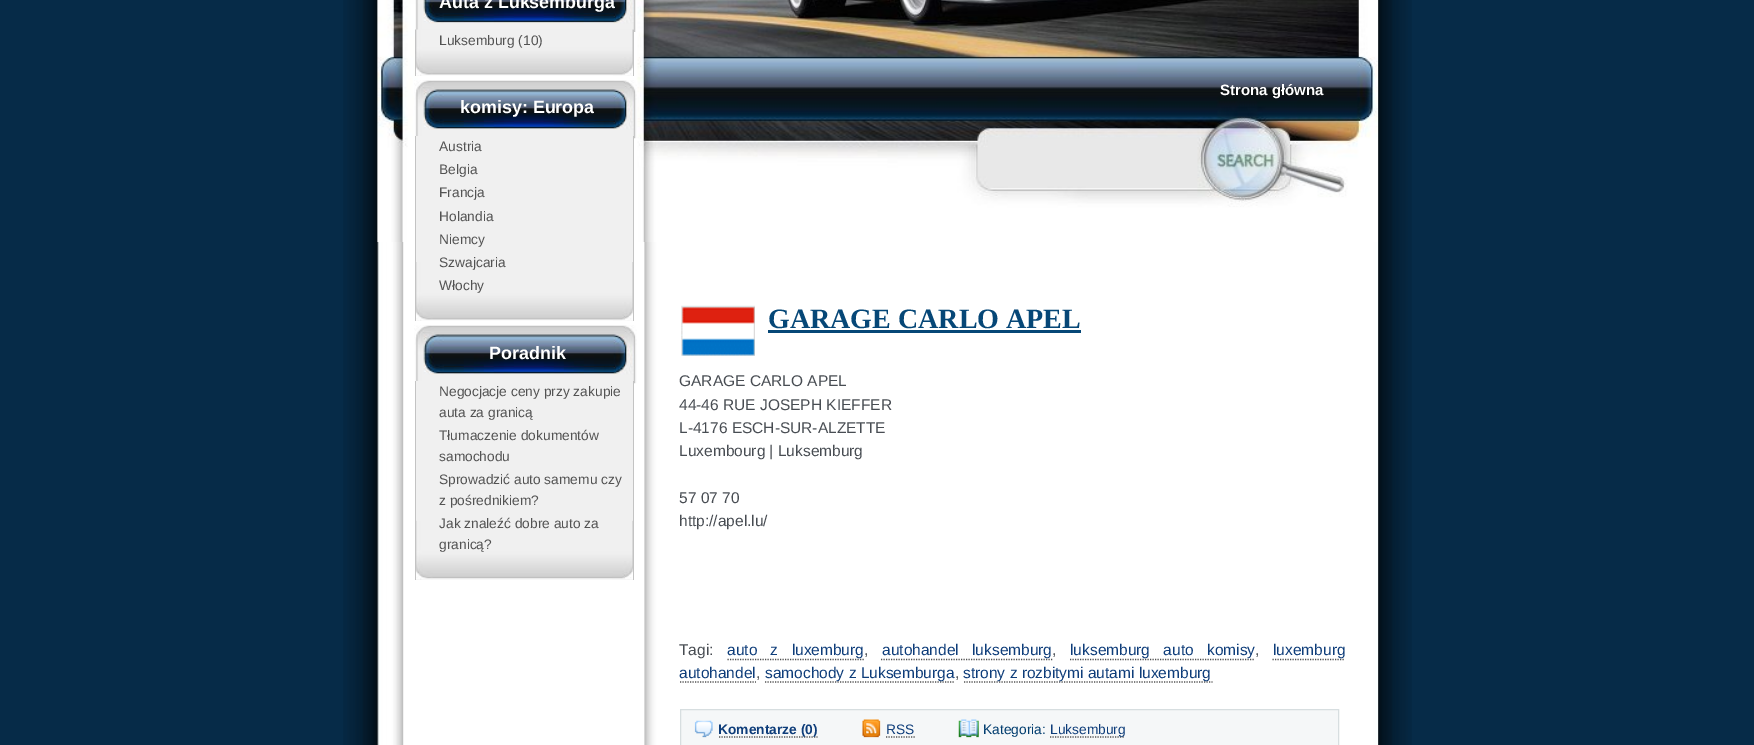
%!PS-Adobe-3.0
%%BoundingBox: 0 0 1754 745
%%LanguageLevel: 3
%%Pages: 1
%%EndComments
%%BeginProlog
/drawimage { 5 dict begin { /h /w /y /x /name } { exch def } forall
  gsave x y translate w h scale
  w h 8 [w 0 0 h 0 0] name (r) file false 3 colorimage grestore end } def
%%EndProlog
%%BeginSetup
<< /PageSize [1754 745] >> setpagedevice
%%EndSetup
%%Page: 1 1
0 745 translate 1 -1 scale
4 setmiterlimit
0.024 0.169 0.282 setrgbcolor
0 0 1754 745 rectfill
(images/1.raw) 343 0 1069 745 drawimage
(images/2.raw) 377 0 1002 745 drawimage
(images/3.raw) 377 0 1001 242 drawimage
(images/4.raw) 415 0 221 32 drawimage
(images/5.raw) 415 29 219 47 drawimage
0.765 setgray
633 30 1 46 rectfill
415 54 1 22 rectfill
(images/6.raw) 414 80 223 59 drawimage
0.941 setgray
416 136 217 185 rectfill
(images/7.raw) 416 262 217 59 drawimage
0.765 setgray
633 136 1 185 rectfill
415 136 1 185 rectfill
(images/6.raw) 414 325 223 59 drawimage
0.941 setgray
416 381 217 199 rectfill
(images/8.raw) 416 520 217 60 drawimage
0.765 setgray
633 381 1 199 rectfill
415 381 1 199 rectfill
(images/9.raw) 681 305 74 51 drawimage
0.024 0.278 0.467 setrgbcolor
768 330 313 3 rectfill
0.318 setgray
1.2 setlinewidth
[1.25 1.25] 0 setdash
newpath 727.5 659.5 moveto 864 659.5 lineto stroke
newpath 881 659.5 moveto 1052.5 659.5 lineto stroke
newpath 1070 659.5 moveto 1255 659.5 lineto stroke
newpath 1272.5 659.5 moveto 1345 659.5 lineto stroke
newpath 680 682 moveto 756 682 lineto stroke
newpath 765 682 moveto 955 682 lineto stroke
newpath 964 682 moveto 1212.5 682 lineto stroke
0.961 0.969 0.973 setrgbcolor
newpath 680.5 709.5 moveto 1338.5 709.5 lineto 1338.5 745.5 lineto 680.5 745.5 lineto closepath gsave fill grestore
0.843 0.871 0.878 setrgbcolor
1 setlinewidth
[] 0 setdash
stroke
(images/10.raw) 694 720 19 18 drawimage
0.318 setgray
1.2 setlinewidth
[1.25 1.25] 0 setdash
newpath 719 737 moveto 817.5 737 lineto stroke
(images/11.raw) 862 719 19 19 drawimage
newpath 886 737 moveto 915 737 lineto stroke
(images/12.raw) 958 719 21 19 drawimage
newpath 1050 737 moveto 1125 737 lineto stroke
/LiberationSans-Bold [17.9 0 0 -17.9 0 0] selectfont
1 setgray
439 8 moveto (Auta z Luksemburga) show
/LiberationSans-Regular [13.75 0 0 -13.75 0 0] selectfont
0.325 setgray
439 45 moveto (Luksemburg \(10\)) show
/LiberationSans-Bold [17.9 0 0 -17.9 0 0] selectfont
1 setgray
460 113 moveto (komisy: Europa) show
/LiberationSans-Regular [13.75 0 0 -13.75 0 0] selectfont
0.325 setgray
439 151 moveto (Austria) show
439 174 moveto (Belgia) show
439 197 moveto (Francja) show
439 221 moveto (Holandia) show
439 244 moveto (Niemcy) show
439 267 moveto (Szwajcaria) show
439 290 moveto (Włochy) show
/LiberationSans-Bold [17.9 0 0 -17.9 0 0] selectfont
1 setgray
489 359 moveto (Poradnik) show
/LiberationSans-Regular [13.75 0 0 -13.75 0 0] selectfont
0.325 setgray
439 396 moveto (Negocjacje ceny przy zakupie) show
439 417 moveto (auta za granicą) show
439 440 moveto (Tłumaczenie dokumentów) show
439 461 moveto (samochodu) show
439 484 moveto (Sprowadzić auto samemu czy) show
439 505 moveto (z pośrednikiem?) show
439 528 moveto (Jak znaleźć dobre auto za) show
439 549 moveto (granicą?) show
/LiberationSans-Bold [15 0 0 -15 0 0] selectfont
1 setgray
1220 95 moveto (Strona główna) show
/LiberationSerif-Bold [28 0 0 -28 0 0] selectfont
0.024 0.278 0.467 setrgbcolor
768 328 moveto (GARAGE CARLO APEL) show
/LiberationSans-Regular [15.5 0 0 -15.5 0 0] selectfont
0.282 0.302 0.325 setrgbcolor
679 386 moveto (GARAGE CARLO APEL) show
679 410 moveto (44-46 RUE JOSEPH KIEFFER) show
679 433 moveto (L-4176 ESCH-SUR-ALZETTE) show
679 456 moveto (Luxembourg | Luksemburg) show
679 503 moveto (57 07 70) show
679 526 moveto (http://apel.lu/) show
679 655 moveto (Tagi:) show
0.055 0.239 0.478 setrgbcolor
727 655 moveto 9 0 32 (auto z luxemburg) widthshow
0.282 0.302 0.325 setrgbcolor
864 655 moveto (,) show
0.055 0.239 0.478 setrgbcolor
882 655 moveto 9 0 32 (autohandel luksemburg) widthshow
0.282 0.302 0.325 setrgbcolor
1052 655 moveto (,) show
0.055 0.239 0.478 setrgbcolor
1070 655 moveto 9 0 32 (luksemburg auto komisy) widthshow
0.282 0.302 0.325 setrgbcolor
1255 655 moveto (,) show
0.055 0.239 0.478 setrgbcolor
1273 655 moveto (luxemburg) show
679 678 moveto (autohandel) show
0.282 0.302 0.325 setrgbcolor
756 678 moveto (,) show
0.055 0.239 0.478 setrgbcolor
765 678 moveto (samochody z Luksemburga) show
0.282 0.302 0.325 setrgbcolor
955 678 moveto (,) show
0.055 0.239 0.478 setrgbcolor
963 678 moveto (strony z rozbitymi autami luxemburg) show
/LiberationSans-Bold [13.75 0 0 -13.75 0 0] selectfont
718 734 moveto (Komentarze \(0\)) show
/LiberationSans-Regular [13.75 0 0 -13.75 0 0] selectfont
886 734 moveto (RSS) show
0 0.235 0.431 setrgbcolor
983 734 moveto (Kategoria:) show
0.055 0.239 0.478 setrgbcolor
1050 734 moveto (Luksemburg) show
showpage
%%EOF
